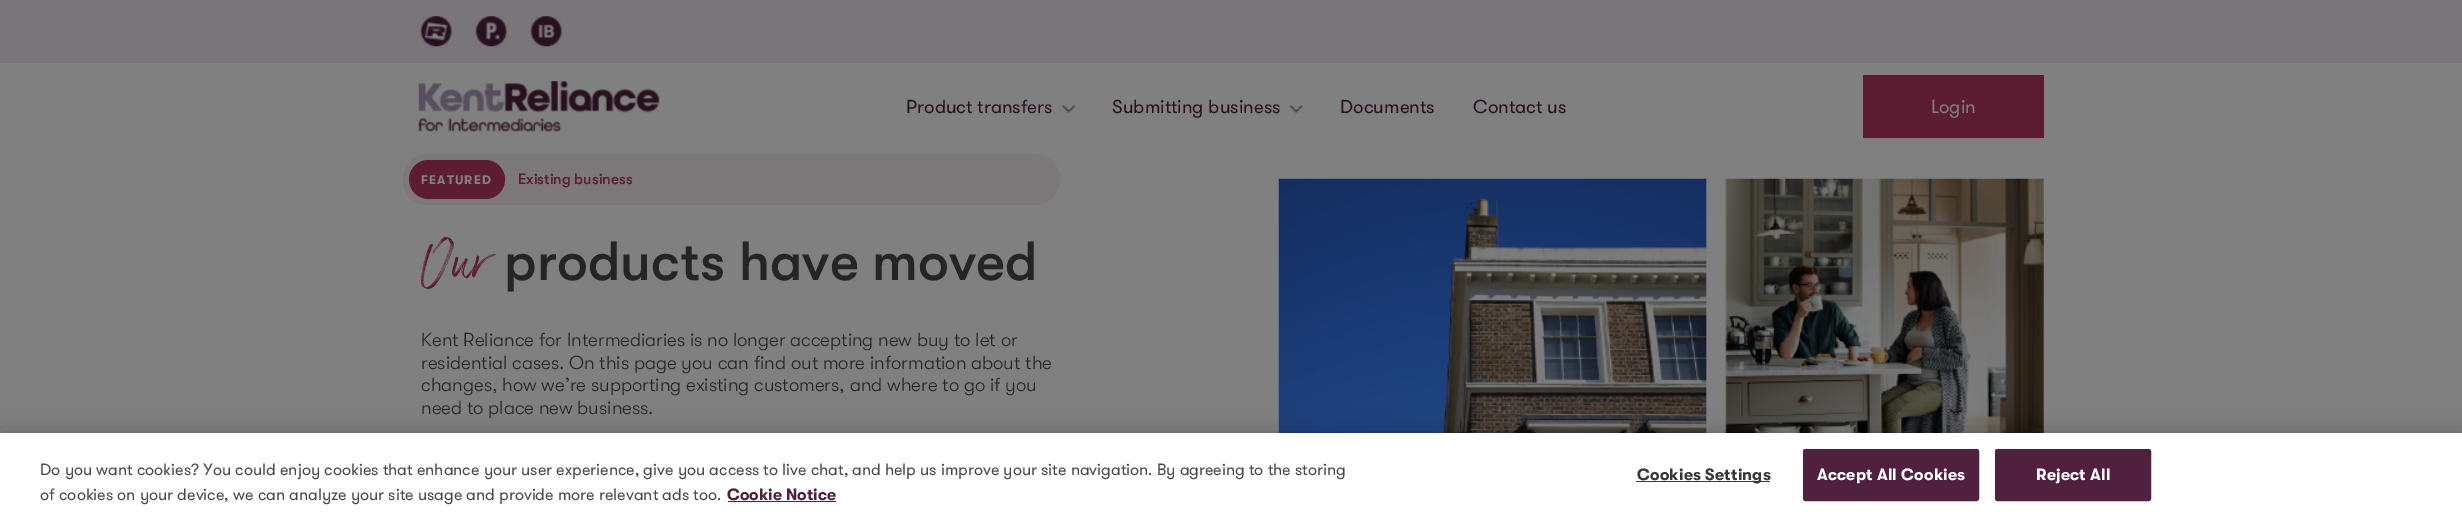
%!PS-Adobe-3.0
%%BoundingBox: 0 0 2462 521
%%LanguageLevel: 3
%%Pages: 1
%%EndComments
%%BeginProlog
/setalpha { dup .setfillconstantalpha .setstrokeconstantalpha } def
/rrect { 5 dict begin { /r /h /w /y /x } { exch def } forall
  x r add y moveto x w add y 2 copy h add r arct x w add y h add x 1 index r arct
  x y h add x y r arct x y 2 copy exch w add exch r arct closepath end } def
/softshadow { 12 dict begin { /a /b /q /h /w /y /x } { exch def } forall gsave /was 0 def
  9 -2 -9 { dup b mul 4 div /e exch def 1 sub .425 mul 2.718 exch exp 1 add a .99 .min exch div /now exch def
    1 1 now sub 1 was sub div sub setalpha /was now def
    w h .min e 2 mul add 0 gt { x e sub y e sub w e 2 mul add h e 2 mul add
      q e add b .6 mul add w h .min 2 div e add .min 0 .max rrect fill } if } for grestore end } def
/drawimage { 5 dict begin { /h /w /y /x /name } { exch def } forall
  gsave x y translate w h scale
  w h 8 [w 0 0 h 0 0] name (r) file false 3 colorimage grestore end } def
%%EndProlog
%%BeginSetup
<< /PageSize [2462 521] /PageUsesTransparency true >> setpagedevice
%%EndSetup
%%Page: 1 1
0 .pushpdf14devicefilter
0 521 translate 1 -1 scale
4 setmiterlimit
0.502 setgray
0 0 2462 521 rectfill
0.475 0.459 0.471 setrgbcolor
0 0 2462 63 rectfill
(images/1.raw) 420 16 32 31 drawimage
(images/2.raw) 475 16 32 31 drawimage
(images/3.raw) 530 16 32 31 drawimage
(images/4.raw) 418 81 242 51 drawimage
(images/5.raw) 1062 105 14 8 drawimage
(images/6.raw) 1289 105 14 8 drawimage
0.361 0.11 0.196 setrgbcolor
1863 75 181 63 rectfill
0.49 0.471 0.478 setrgbcolor
403 154 657 51 25 rrect fill
0.361 0.11 0.196 setrgbcolor
409 160 96 39 19.5 rrect fill
(images/7.raw) 1278 178 766 255 drawimage
0 setgray
0 433 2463 88 0 11 0.2 softshadow
1 setgray
0 433 2462 88 rectfill
0.314 0.129 0.247 setrgbcolor
728 501 108 1 rectfill
0.224 0.22 0.224 setrgbcolor
1636 481 134 1 rectfill
0.314 0.129 0.247 setrgbcolor
1803.5 449.5 175 51 2 rrect gsave fill grestore
stroke
1995.5 449.5 155 51 2 rrect gsave fill grestore
stroke
/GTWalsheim-Regular [18.75 0 0 -18.75 0 0] selectfont
0.157 0.067 0.125 setrgbcolor
906 113 moveto (Product transfers) show
1112 113 moveto (Submitting business) show
1340 113 moveto (Documents) show
1473 113 moveto (Contact us) show
0.502 setgray
1931 113 moveto (Login) show
/GTWalsheim-Bold [12.5 0 0 -12.5 0 0] selectfont
421 184 moveto 1.25 0 (FEATURED) ashow
/GTWalsheim-Medium [15 0 0 -15 0 0] selectfont
0.361 0.11 0.196 setrgbcolor
518 184 moveto (Existing business) show
/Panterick-Regular [55 0 0 -55 0 0] selectfont
421 280 moveto (Our) show
/GTWalsheim-Medium [55 0 0 -55 0 0] selectfont
0.145 setgray
504 280 moveto (products have moved) show
/GTWalsheim-Light [18.75 0 0 -18.75 0 0] selectfont
421 346 moveto (Kent Reliance for Intermediaries is no longer accepting new buy to let or) show
421 369 moveto (residential cases. On this page you can find out more information about the) show
421 391 moveto (changes, how we’re supporting existing customers, and where to go if you) show
421 414 moveto (need to place new business.) show
/GTWalsheim-Regular [16.25 0 0 -16.25 0 0] selectfont
0.29 0.29 0.286 setrgbcolor
40 475 moveto (Do you want cookies? You could enjoy cookies that enhance your user experience, give you access to live chat, and help us improve your site navigation. By agreeing to the storing) show
40 500 moveto (of cookies on your device, we can analyze your site usage and provide more relevant ads too.) show
/GTWalsheim-Bold [16.25 0 0 -16.25 0 0] selectfont
0.314 0.129 0.247 setrgbcolor
727 500 moveto (Cookie Notice) show
0.224 0.22 0.224 setrgbcolor
1637 480 moveto 0.2 0 (Cookies Settings) ashow
1 setgray
1817 480 moveto 0.2 0 (Accept All Cookies) ashow
2036 480 moveto 0.2 0 (Reject All) ashow
.poppdf14devicefilter showpage
%%EOF
